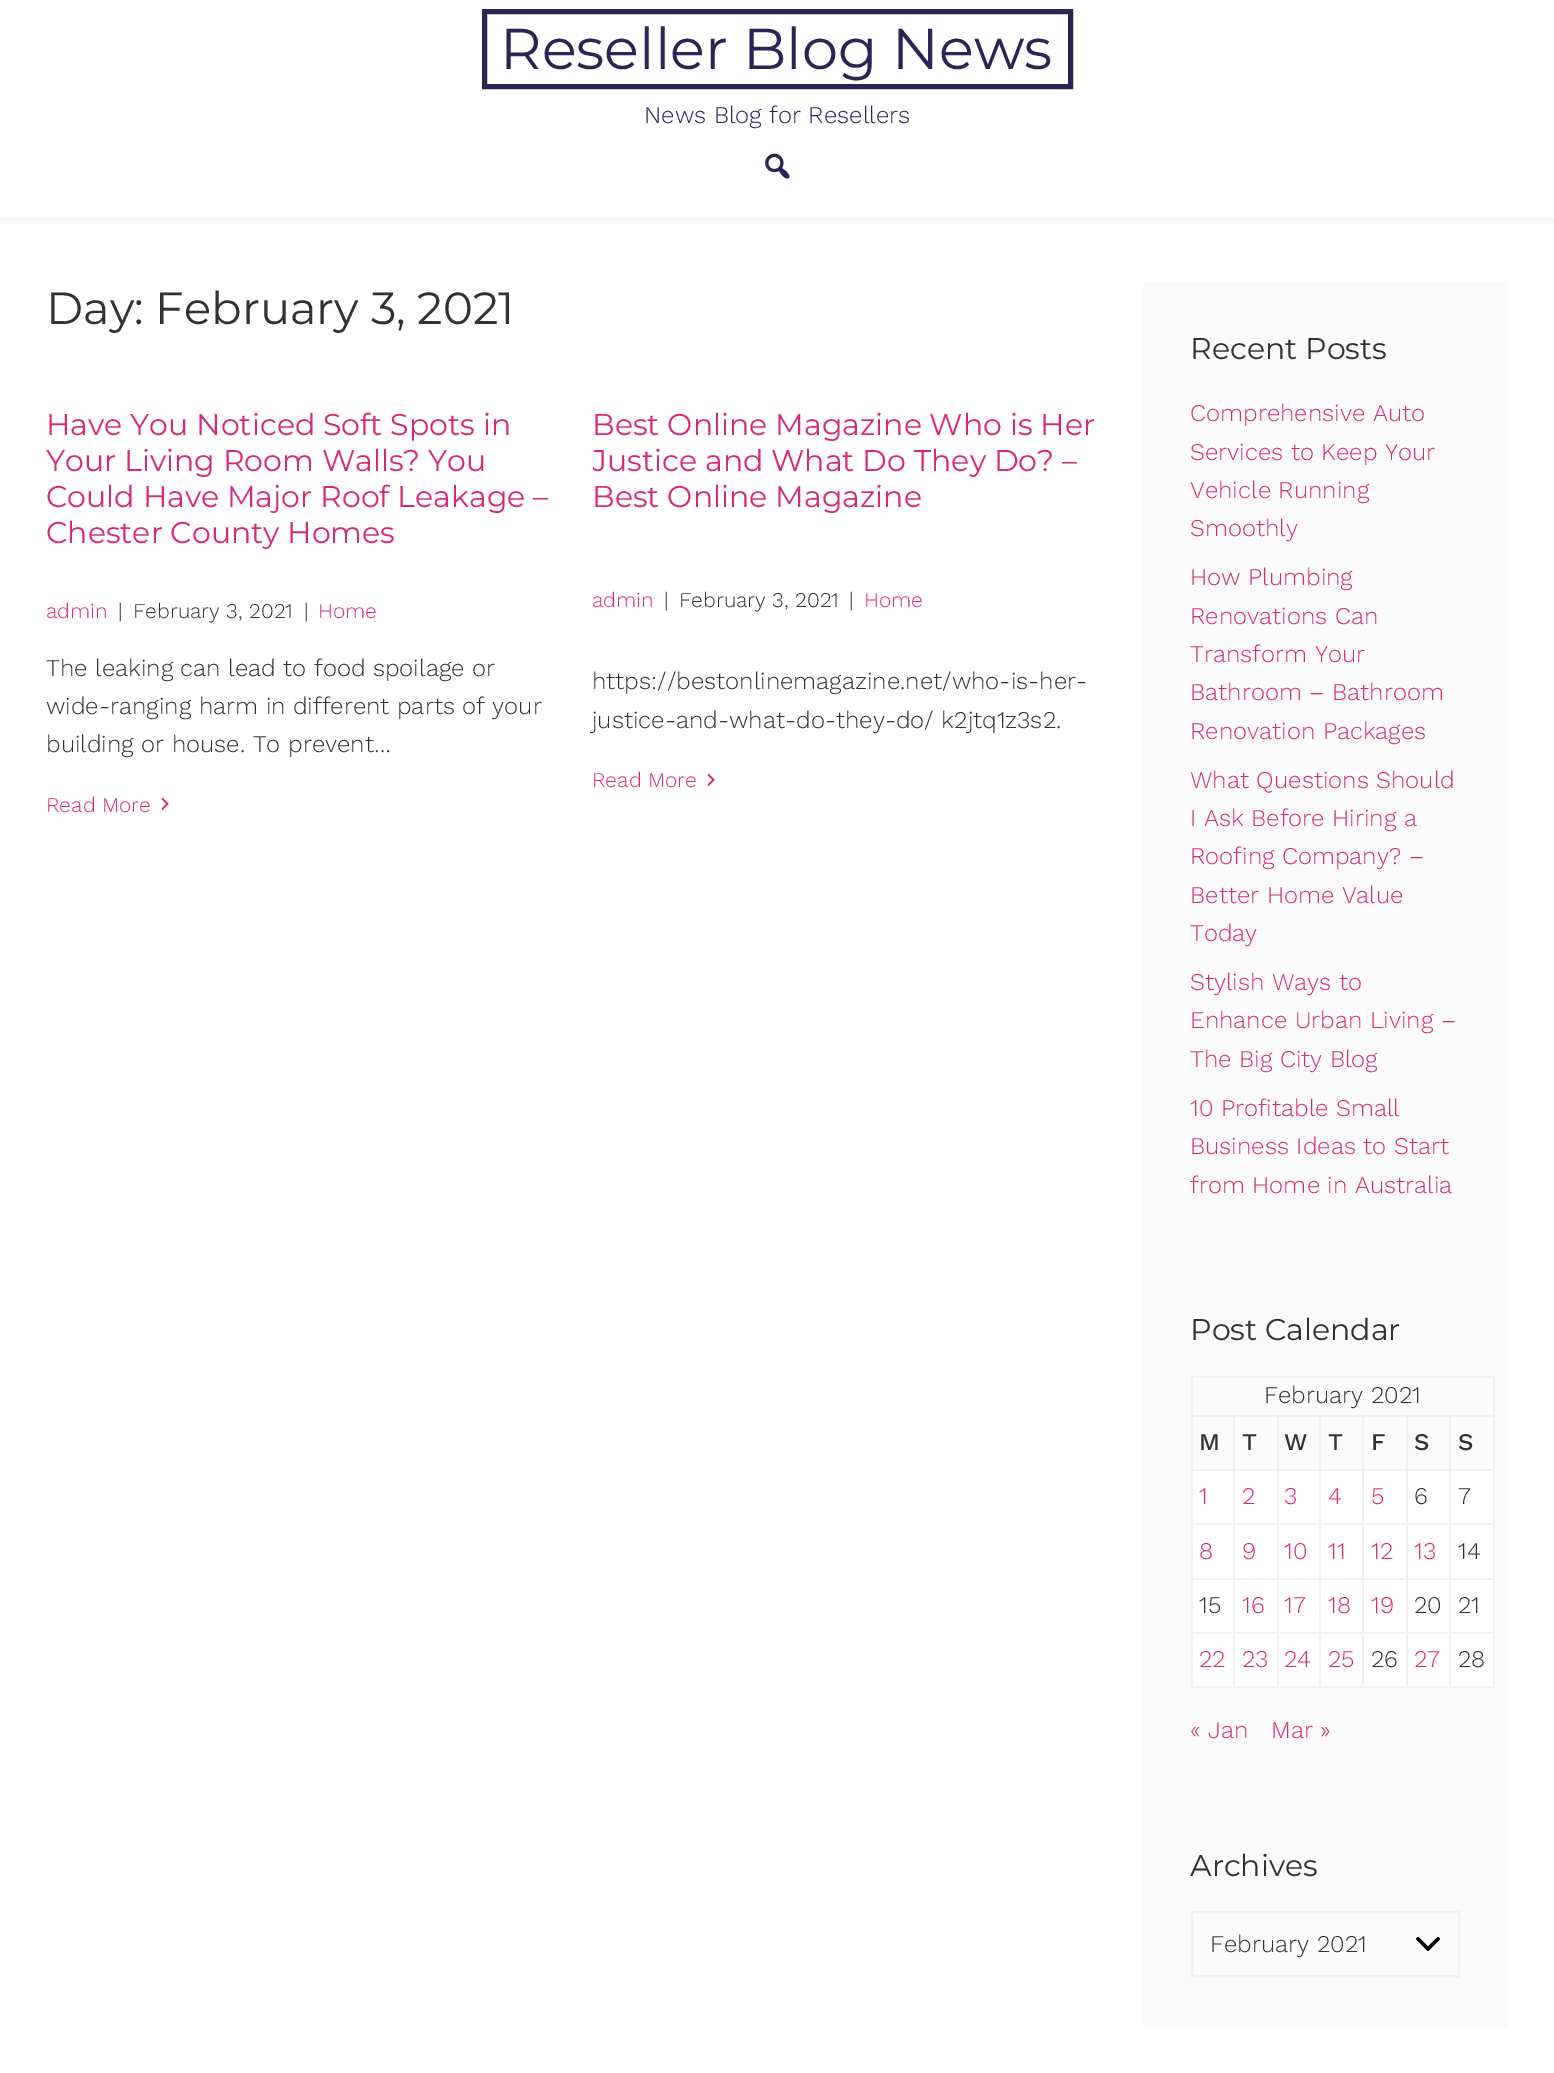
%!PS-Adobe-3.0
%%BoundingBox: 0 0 1554 2073
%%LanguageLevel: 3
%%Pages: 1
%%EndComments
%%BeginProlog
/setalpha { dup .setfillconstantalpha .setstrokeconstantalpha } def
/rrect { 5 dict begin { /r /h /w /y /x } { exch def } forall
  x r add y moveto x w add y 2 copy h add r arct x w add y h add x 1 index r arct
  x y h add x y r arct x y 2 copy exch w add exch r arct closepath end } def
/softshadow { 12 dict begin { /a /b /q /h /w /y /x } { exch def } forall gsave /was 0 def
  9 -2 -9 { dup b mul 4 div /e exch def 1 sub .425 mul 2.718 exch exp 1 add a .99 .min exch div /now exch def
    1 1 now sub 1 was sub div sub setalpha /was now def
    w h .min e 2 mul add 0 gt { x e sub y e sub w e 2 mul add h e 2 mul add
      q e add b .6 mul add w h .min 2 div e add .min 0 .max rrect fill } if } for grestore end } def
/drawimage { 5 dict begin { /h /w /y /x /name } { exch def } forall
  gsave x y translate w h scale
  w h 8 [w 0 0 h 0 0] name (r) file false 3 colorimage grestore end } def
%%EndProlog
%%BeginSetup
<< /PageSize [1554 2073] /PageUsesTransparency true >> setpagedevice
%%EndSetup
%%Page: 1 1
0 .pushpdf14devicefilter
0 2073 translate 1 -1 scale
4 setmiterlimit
1 setgray
0 0 1554 2073 rectfill
0 setgray
0 3 1554 218 0 3 0.06 softshadow
1 setgray
0 0 1554 218 rectfill
0.176 0.137 0.329 setrgbcolor
5 setlinewidth
484.5 11.5 586 75 rectstroke
(images/1.raw) 765 153 25 26 drawimage
(images/2.raw) 161 797 8 14 drawimage
(images/2.raw) 707 773 8 14 drawimage
0.984 setgray
1143 282 365 1745 rectfill
0.945 setgray
1191 1376 303 2 rectfill
1493 1376 2 312 rectfill
1191 1686 303 2 rectfill
1191 1376 2 312 rectfill
1449 1415 45 2 rectfill
1449 1469 45 2 rectfill
1449 1523 45 2 rectfill
1449 1578 45 2 rectfill
1449 1632 45 2 rectfill
1449 1632 2 56 rectfill
1406 1632 45 2 rectfill
1449 1578 2 56 rectfill
1406 1578 45 2 rectfill
1449 1523 2 57 rectfill
1406 1523 45 2 rectfill
1449 1469 2 55 rectfill
1406 1469 45 2 rectfill
1449 1415 2 55 rectfill
1406 1415 45 2 rectfill
1406 1632 2 56 rectfill
1362 1632 45 2 rectfill
1406 1578 2 56 rectfill
1362 1578 45 2 rectfill
1406 1523 2 57 rectfill
1362 1523 45 2 rectfill
1406 1469 2 55 rectfill
1362 1469 45 2 rectfill
1406 1415 2 55 rectfill
1362 1415 45 2 rectfill
1362 1632 2 56 rectfill
1319 1632 45 2 rectfill
1362 1578 2 56 rectfill
1319 1578 45 2 rectfill
1362 1523 2 57 rectfill
1319 1523 45 2 rectfill
1362 1469 2 55 rectfill
1319 1469 45 2 rectfill
1362 1415 2 55 rectfill
1319 1415 45 2 rectfill
1319 1632 2 56 rectfill
1277 1632 43 2 rectfill
1319 1578 2 56 rectfill
1277 1578 43 2 rectfill
1319 1523 2 57 rectfill
1277 1523 43 2 rectfill
1319 1469 2 55 rectfill
1277 1469 43 2 rectfill
1319 1415 2 55 rectfill
1277 1415 43 2 rectfill
1277 1632 2 56 rectfill
1233 1632 45 2 rectfill
1277 1578 2 56 rectfill
1233 1578 45 2 rectfill
1277 1523 2 57 rectfill
1233 1523 45 2 rectfill
1277 1469 2 55 rectfill
1233 1469 45 2 rectfill
1277 1415 2 55 rectfill
1233 1415 45 2 rectfill
1233 1632 2 56 rectfill
1191 1632 44 2 rectfill
1233 1578 2 56 rectfill
1191 1578 44 2 rectfill
1233 1523 2 57 rectfill
1191 1523 44 2 rectfill
1233 1469 2 55 rectfill
1191 1469 44 2 rectfill
1233 1415 2 55 rectfill
1191 1415 44 2 rectfill
1 setgray
1193 1471 40 52 rectfill
1235 1471 42 52 rectfill
1279 1471 40 52 rectfill
1321 1471 41 52 rectfill
1364 1471 42 52 rectfill
1408 1471 41 52 rectfill
1451 1471 42 52 rectfill
1193 1525 40 53 rectfill
1235 1525 42 53 rectfill
1279 1525 40 53 rectfill
1321 1525 41 53 rectfill
1364 1525 42 53 rectfill
1408 1525 41 53 rectfill
1451 1525 42 53 rectfill
1193 1580 40 52 rectfill
1235 1580 42 52 rectfill
1279 1580 40 52 rectfill
1321 1580 41 52 rectfill
1364 1580 42 52 rectfill
1408 1580 41 52 rectfill
1451 1580 42 52 rectfill
1193 1634 40 52 rectfill
1235 1634 42 52 rectfill
1279 1634 40 52 rectfill
1321 1634 41 52 rectfill
1364 1634 42 52 rectfill
1408 1634 41 52 rectfill
1451 1634 42 52 rectfill
(images/3.raw) 1416 1936 24 15 drawimage
0.945 setgray
2 setlinewidth
1192 1912 267 64 rectstroke
/Montserrat-Regular [57.5 0 0 -57.5 0 0] selectfont
0.176 0.137 0.329 setrgbcolor
500 69 moveto (Reseller Blog News) show
/WorkSans-Light [24 0 0 -24 0 0] selectfont
644 123 moveto (News Blog for Resellers) show
/Montserrat-Regular [45 0 0 -45 0 0] selectfont
0.192 setgray
46 324 moveto (Day: February 3, 2021) show
/Montserrat-Regular [30 0 0 -30 0 0] selectfont
0.847 0.161 0.471 setrgbcolor
46 435 moveto (Have You Noticed Soft Spots in) show
46 471 moveto (Your Living Room Walls? You) show
46 507 moveto (Could Have Major Roof Leakage –) show
46 543 moveto (Chester County Homes) show
/WorkSans-Light [21 0 0 -21 0 0] selectfont
46 618 moveto (admin) show
0.192 setgray
118 618 moveto (|) show
133 618 moveto (February 3, 2021) show
304 618 moveto (|) show
0.847 0.161 0.471 setrgbcolor
318 618 moveto (Home) show
/WorkSans-Light [24 0 0 -24 0 0] selectfont
0.192 setgray
46 676 moveto (The leaking can lead to food spoilage or) show
46 714 moveto (wide-ranging harm in different parts of your) show
46 752 moveto (building or house. To prevent…) show
/WorkSans-Light [21 0 0 -21 0 0] selectfont
0.847 0.161 0.471 setrgbcolor
46 812 moveto (Read More) show
/Montserrat-Regular [30 0 0 -30 0 0] selectfont
592 435 moveto (Best Online Magazine Who is Her) show
gsave
593 407 513 123 rectclip
592 471 moveto (Justice and What Do They Do? –) show
grestore
592 507 moveto (Best Online Magazine) show
/WorkSans-Light [21 0 0 -21 0 0] selectfont
592 607 moveto (admin) show
0.192 setgray
664 607 moveto (|) show
679 607 moveto (February 3, 2021) show
849 607 moveto (|) show
0.847 0.161 0.471 setrgbcolor
864 607 moveto (Home) show
/WorkSans-Light [24 0 0 -24 0 0] selectfont
0.192 setgray
592 689 moveto (https://bestonlinemagazine.net/who-is-her-) show
592 728 moveto (justice-and-what-do-they-do/ k2jtq1z3s2.) show
/WorkSans-Light [21 0 0 -21 0 0] selectfont
0.847 0.161 0.471 setrgbcolor
592 787 moveto (Read More) show
/Montserrat-Regular [30 0 0 -30 0 0] selectfont
0.192 setgray
1190 359 moveto (Recent Posts) show
/WorkSans-Light [24 0 0 -24 0 0] selectfont
0.847 0.161 0.471 setrgbcolor
1190 421 moveto (Comprehensive Auto) show
1190 460 moveto (Services to Keep Your) show
1190 498 moveto (Vehicle Running) show
1190 536 moveto (Smoothly) show
1190 585 moveto (How Plumbing) show
1190 624 moveto (Renovations Can) show
1190 662 moveto (Transform Your) show
1190 700 moveto (Bathroom – Bathroom) show
1190 739 moveto (Renovation Packages) show
1190 788 moveto (What Questions Should) show
1190 826 moveto (I Ask Before Hiring a) show
1190 864 moveto (Roofing Company? –) show
1190 903 moveto (Better Home Value) show
1190 941 moveto (Today) show
1190 990 moveto (Stylish Ways to) show
1190 1028 moveto (Enhance Urban Living –) show
1190 1067 moveto (The Big City Blog) show
1190 1116 moveto (10 Profitable Small) show
1190 1154 moveto (Business Ideas to Start) show
1190 1193 moveto (from Home in Australia) show
/Montserrat-Regular [30 0 0 -30 0 0] selectfont
0.192 setgray
1190 1340 moveto (Post Calendar) show
/WorkSans-Light [24 0 0 -24 0 0] selectfont
1264 1403 moveto (February 2021) show
/WorkSans-Medium [24 0 0 -24 0 0] selectfont
1199 1450 moveto (M) show
1242 1450 moveto (T) show
1284 1450 moveto (W) show
1328 1450 moveto (T) show
1371 1450 moveto (F) show
1414 1450 moveto (S) show
1458 1450 moveto (S) show
/WorkSans-Light [24 0 0 -24 0 0] selectfont
0.847 0.161 0.471 setrgbcolor
1199 1504 moveto (1) show
1242 1504 moveto (2) show
1284 1504 moveto (3) show
1328 1504 moveto (4) show
1371 1504 moveto (5) show
0.192 setgray
1414 1504 moveto (6) show
1458 1504 moveto (7) show
0.847 0.161 0.471 setrgbcolor
1199 1559 moveto (8) show
1242 1559 moveto (9) show
1284 1559 moveto (10) show
1328 1559 moveto (11) show
1371 1559 moveto (12) show
1414 1559 moveto (13) show
0.192 setgray
1458 1559 moveto (14) show
1199 1613 moveto (15) show
0.847 0.161 0.471 setrgbcolor
1242 1613 moveto (16) show
1284 1613 moveto (17) show
1328 1613 moveto (18) show
1371 1613 moveto (19) show
0.192 setgray
1414 1613 moveto (20) show
1458 1613 moveto (21) show
0.847 0.161 0.471 setrgbcolor
1199 1667 moveto (22) show
1242 1667 moveto (23) show
1284 1667 moveto (24) show
1328 1667 moveto (25) show
0.192 setgray
1371 1667 moveto (26) show
0.847 0.161 0.471 setrgbcolor
1414 1667 moveto (27) show
0.192 setgray
1458 1667 moveto (28) show
0.847 0.161 0.471 setrgbcolor
1190 1738 moveto (« Jan) show
1271 1738 moveto (Mar ») show
/Montserrat-Regular [30 0 0 -30 0 0] selectfont
0.192 setgray
1190 1876 moveto (Archives) show
/WorkSans-Light [24 0 0 -24 0 0] selectfont
1210 1952 moveto (February 2021) show
.poppdf14devicefilter showpage
%%EOF
